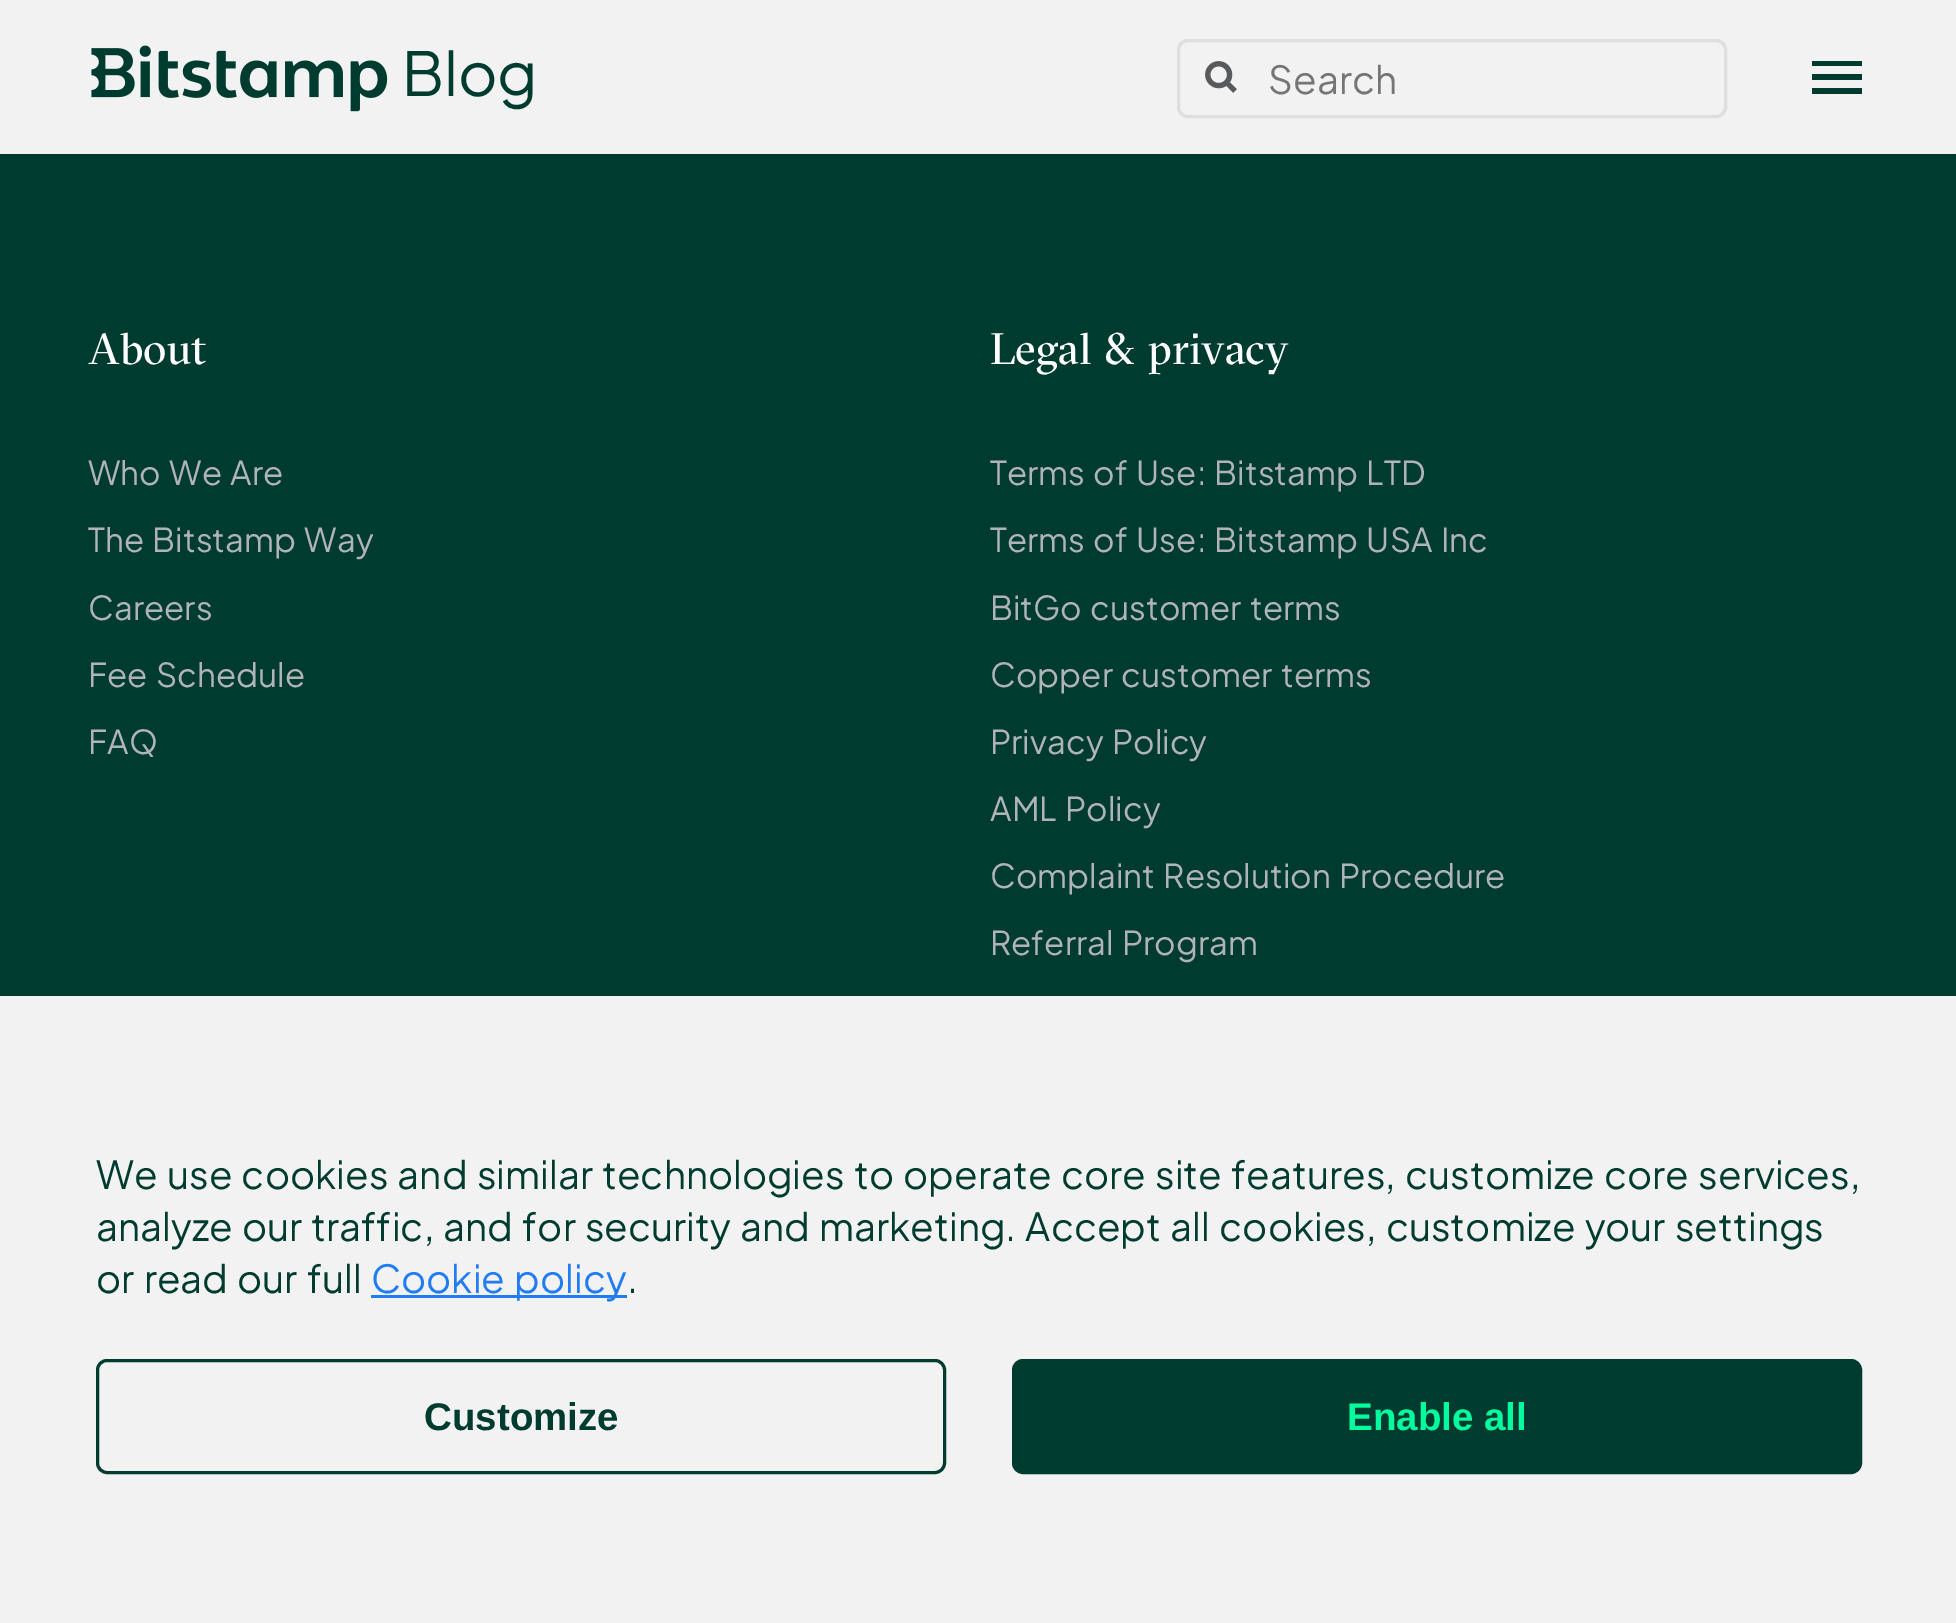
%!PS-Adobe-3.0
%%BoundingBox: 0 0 1956 1623
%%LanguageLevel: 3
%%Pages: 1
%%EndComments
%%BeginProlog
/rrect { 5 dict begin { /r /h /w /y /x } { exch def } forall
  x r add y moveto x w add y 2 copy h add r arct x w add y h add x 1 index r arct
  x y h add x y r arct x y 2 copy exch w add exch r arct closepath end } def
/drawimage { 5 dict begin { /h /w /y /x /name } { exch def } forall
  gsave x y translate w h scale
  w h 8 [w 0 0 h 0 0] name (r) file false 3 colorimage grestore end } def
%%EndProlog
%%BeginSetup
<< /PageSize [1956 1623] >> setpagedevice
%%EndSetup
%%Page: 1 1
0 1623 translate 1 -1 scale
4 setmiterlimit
0 0.231 0.184 setrgbcolor
0 0 1956 1623 rectfill
0.949 setgray
0 0 1956 154 rectfill
(images/1.raw) 91 45 297 67 drawimage
0.863 0.871 0.878 setrgbcolor
3 setlinewidth
1178.5 40.5 547 76 9.5 rrect stroke
(images/2.raw) 1205 61 32 32 drawimage
0 0.231 0.184 setrgbcolor
1812 61 50 5 rectfill
1812 74 50 6 rectfill
1812 88 50 6 rectfill
0.949 setgray
0 996 1956 627 rectfill
0.129 0.486 0.949 setrgbcolor
371 1295 256 3 rectfill
0 0.231 0.184 setrgbcolor
97.5 1360.5 847 112 9.5 rrect stroke
1013.5 1360.5 847 112 9.5 rrect gsave fill grestore
stroke
/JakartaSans-Regular [60.5 0 0 -60.5 0 0] selectfont
402 96 moveto (Blog) show
/JakartaSans-Regular [38.5 0 0 -38.5 0 0] selectfont
0.459 setgray
1268 94 moveto (Search) show
/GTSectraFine-Regular [44 0 0 -44 0 0] selectfont
1 setgray
88 364 moveto (About) show
/JakartaSans-Regular [33 0 0 -33 0 0] selectfont
0.694 0.706 0.714 setrgbcolor
88 485 moveto 2.75 0 32 (Who We Are) widthshow
88 552 moveto 2.75 0 32 (The Bitstamp Way) widthshow
88 620 moveto (Careers) show
88 687 moveto 2.75 0 32 (Fee Schedule) widthshow
88 754 moveto (FAQ) show
/GTSectraFine-Regular [44 0 0 -44 0 0] selectfont
1 setgray
990 364 moveto 2.75 0 32 (Legal & privacy) widthshow
/JakartaSans-Regular [33 0 0 -33 0 0] selectfont
0.694 0.706 0.714 setrgbcolor
990 485 moveto 2.75 0 32 (Terms of Use: Bitstamp LTD) widthshow
990 552 moveto 2.75 0 32 (Terms of Use: Bitstamp USA Inc) widthshow
990 620 moveto 2.75 0 32 (BitGo customer terms) widthshow
990 687 moveto 2.75 0 32 (Copper customer terms) widthshow
990 754 moveto 2.75 0 32 (Privacy Policy) widthshow
990 821 moveto 2.75 0 32 (AML Policy) widthshow
990 888 moveto 2.75 0 32 (Complaint Resolution Procedure) widthshow
990 955 moveto 2.75 0 32 (Referral Program) widthshow
/JakartaSans-Regular [38.5 0 0 -38.5 0 0] selectfont
0 0.231 0.184 setrgbcolor
96 1189 moveto 2.75 0 32 (We use cookies and similar technologies to operate core site features, customize core services,) widthshow
96 1241 moveto 2.75 0 32 (analyze our traffic, and for security and marketing. Accept all cookies, customize your settings) widthshow
96 1293 moveto 2.75 0 32 (or read our full) widthshow
0.129 0.486 0.949 setrgbcolor
371 1293 moveto 2.75 0 32 (Cookie policy) widthshow
0 0.231 0.184 setrgbcolor
627 1293 moveto (.) show
/LiberationSans-Bold [38.5 0 0 -38.5 0 0] selectfont
424 1430 moveto (Customize) show
0.012 0.988 0.616 setrgbcolor
1347 1430 moveto (Enable all) show
showpage
%%EOF
